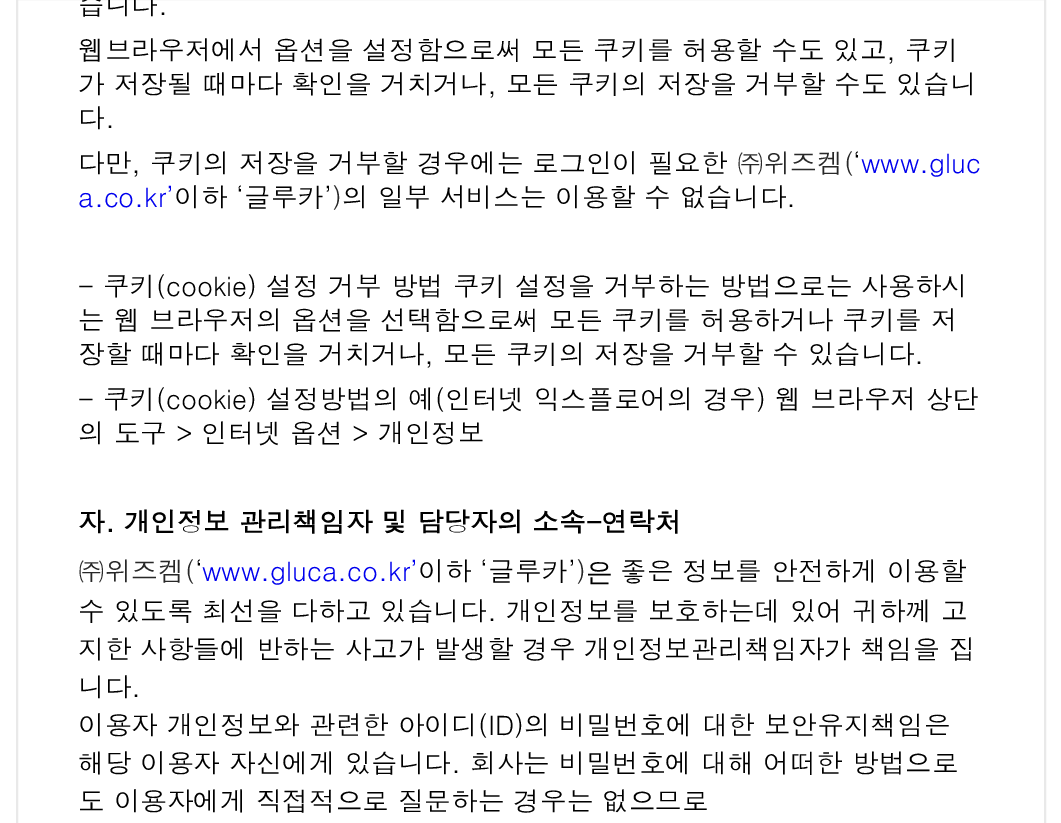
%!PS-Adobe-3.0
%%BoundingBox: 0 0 1061 823
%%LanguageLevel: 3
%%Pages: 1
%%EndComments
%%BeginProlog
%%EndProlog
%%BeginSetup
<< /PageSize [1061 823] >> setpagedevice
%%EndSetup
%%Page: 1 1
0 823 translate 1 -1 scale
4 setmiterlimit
1 setgray
0 0 1061 823 rectfill
0.914 setgray
2 setlinewidth
17 -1 1028 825 rectstroke
/Dotum-Regular [26.65 0 0 -26.65 0 0] selectfont
0 setgray
78 15 moveto (습니다.) show
78 60 moveto (웹브라우저에서 옵션을 설정함으로써 모든 쿠키를 허용할 수도 있고, 쿠키) show
78 94 moveto (가 저장될 때마다 확인을 거치거나, 모든 쿠키의 저장을 거부할 수도 있습니) show
78 128 moveto (다.) show
78 173 moveto (다만, 쿠키의 저장을 거부할 경우에는 로그인이 필요한) show
0.157 setgray
737 173 moveto (㈜위즈켐\() show
0 setgray
853 173 moveto (‘) show
0 0 0.933 setrgbcolor
861 173 moveto (www.gluc) show
78 207 moveto (a.co.kr’) show
0 setgray
174 207 moveto (이하 ‘글루카’) show
0.157 setgray
332 207 moveto (\)) show
0 setgray
342 207 moveto (의 일부 서비스는 이용할 수 없습니다.) show
78 296 moveto (- 쿠키\(cookie\) 설정 거부 방법 쿠키 설정을 거부하는 방법으로는 사용하시) show
78 330 moveto (는 웹 브라우저의 옵션을 선택함으로써 모든 쿠키를 허용하거나 쿠키를 저) show
78 364 moveto (장할 때마다 확인을 거치거나, 모든 쿠키의 저장을 거부할 수 있습니다.) show
78 409 moveto (- 쿠키\(cookie\) 설정방법의 예\(인터넷 익스플로어의 경우\) 웹 브라우저 상단) show
78 443 moveto (의 도구 > 인터넷 옵션 > 개인정보) show
/Dotum-Bold [26.65 0 0 -26.65 0 0] selectfont
78 532 moveto (자. 개인정보 관리책임자 및 담당자의 소속-연락처) show
/Dotum-Regular [26.65 0 0 -26.65 0 0] selectfont
0.157 setgray
78 581 moveto (㈜위즈켐\() show
0 setgray
195 581 moveto (‘) show
0 0 0.933 setrgbcolor
202 581 moveto (www.gluca.co.kr’) show
0 setgray
418 581 moveto (이하 ‘글루카’) show
0.157 setgray
576 581 moveto (\)) show
/WenQuanYiZenHei-Medium [26.65 0 0 -26.65 0 0] selectfont
0 setgray
586 581 moveto (은) show
/Dotum-Regular [26.65 0 0 -26.65 0 0] selectfont
620 581 moveto (좋은 정보를 안전하게 이용할) show
78 621 moveto (수 있도록 최선을 다하고 있습니다. 개인정보를 보호하는데 있어 귀하께 고) show
78 659 moveto (지한 사항들에 반하는 사고가 발생할 경우 개인정보관리책임자가 책임을 집) show
78 697 moveto (니다.) show
78 735 moveto (이용자 개인정보와 관련한 아이디\(ID\)의 비밀번호에 대한 보안유지책임은) show
78 773 moveto (해당 이용자 자신에게 있습니다. 회사는 비밀번호에 대해 어떠한 방법으로) show
78 811 moveto (도 이용자에게 직접적으로 질문하는 경우는 없으므로) show
showpage
%%EOF
